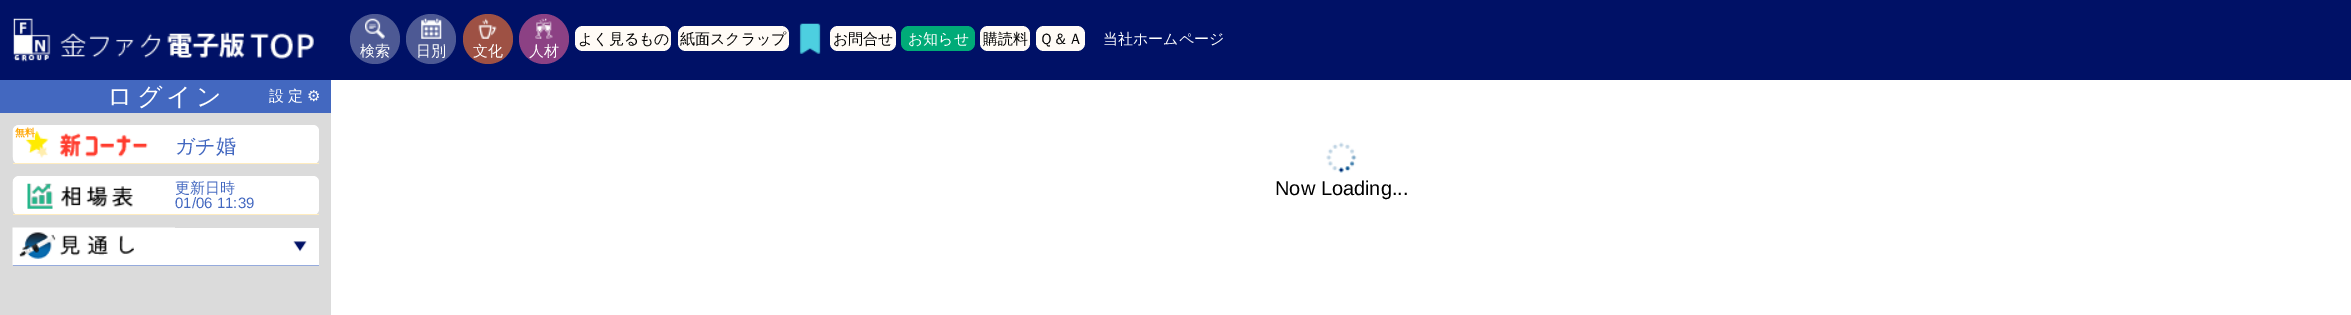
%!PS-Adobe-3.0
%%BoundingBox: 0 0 2351 315
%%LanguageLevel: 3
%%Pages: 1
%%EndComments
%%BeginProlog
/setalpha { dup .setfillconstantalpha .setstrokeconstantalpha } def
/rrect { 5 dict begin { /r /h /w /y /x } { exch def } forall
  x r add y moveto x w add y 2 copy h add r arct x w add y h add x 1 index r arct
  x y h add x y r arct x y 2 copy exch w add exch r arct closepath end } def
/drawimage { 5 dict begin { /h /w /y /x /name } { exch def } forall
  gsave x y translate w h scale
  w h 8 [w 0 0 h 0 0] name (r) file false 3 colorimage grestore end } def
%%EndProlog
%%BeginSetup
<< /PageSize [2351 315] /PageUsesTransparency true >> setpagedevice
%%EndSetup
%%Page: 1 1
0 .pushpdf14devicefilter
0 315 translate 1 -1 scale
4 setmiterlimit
1 setgray
0 0 2351 315 rectfill
0 0.067 0.4 setrgbcolor
0 0 2351 80 rectfill
(images/1.raw) 13 18 301 44 drawimage
1 0.984 0.965 setrgbcolor
575 26 96 25 8 rrect fill
678 26 111 25 8 rrect fill
(images/2.raw) 799 23 22 31 drawimage
830 26 66 25 8 rrect fill
0 0.671 0.471 setrgbcolor
901 26 74 25 8 rrect fill
1 0.984 0.965 setrgbcolor
980 26 50 25 8 rrect fill
1036 26 49 25 8 rrect fill
0.302 0.349 0.58 setrgbcolor
newpath 375 39 25 0 360 arc closepath fill
(images/3.raw) 365 18 20 21 drawimage
newpath 431 39 25 0 360 arc closepath fill
(images/4.raw) 421 18 21 21 drawimage
0.62 0.318 0.267 setrgbcolor
newpath 488 39 25 0 360 arc closepath fill
(images/5.raw) 478 18 19 21 drawimage
0.549 0.255 0.518 setrgbcolor
newpath 544 39 25 0 360 arc closepath fill
(images/6.raw) 535 18 18 21 drawimage
0.859 setgray
0 113 331 202 rectfill
0.263 0.408 0.753 setrgbcolor
0 80 331 33 rectfill
1 setgray
13 125 306 39 6 rrect fill
(images/7.raw) 12 125 136 35 drawimage
0.8 setalpha
24 133 11 7 rectfill
1 setalpha
1 0.925 0.749 setrgbcolor
13 163 306 1 rectfill
1 setgray
13 176 306 39 6 rrect fill
1 0.925 0.749 setrgbcolor
13 214 306 1 rectfill
(images/8.raw) 12 177 121 34 drawimage
1 setgray
175 228 144 37 rectfill
(images/9.raw) 293 241 14 11 drawimage
0.584 0.667 0.863 setrgbcolor
13 265 306 1 rectfill
(images/10.raw) 12 227 163 38 drawimage
(images/11.raw) 1326 142 31 31 drawimage
/WenQuanYiZenHei-Medium [15 0 0 -15 0 0] selectfont
0 setgray
578 44 moveto (よく見るもの) show
680 44 moveto (紙面スクラップ) show
833 44 moveto (お問合せ) show
1 setgray
908 44 moveto (お知らせ) show
0 setgray
983 44 moveto (購読料) show
1039 44 moveto (Ｑ＆Ａ) show
1 setgray
1103 44 moveto (当社ホームページ) show
360 56 moveto (検索) show
416 56 moveto (日別) show
473 56 moveto (文化) show
529 56 moveto (人材) show
/WenQuanYiZenHei-Medium [25 0 0 -25 0 0] selectfont
107 105 moveto 4 0 (ログイン) ashow
/WenQuanYiZenHei-Medium [15 0 0 -15 0 0] selectfont
269 101 moveto 4 0 (設定) ashow
/DejaVuSans-Regular [15 0 0 -15 0 0] selectfont
307 101 moveto 4 0 (⚙) ashow
/WenQuanYiZenHei-Bold [10 0 0 -10 0 0] selectfont
1 0.647 0 setrgbcolor
15 136 moveto (無料) show
/WenQuanYiZenHei-Medium [20 0 0 -20 0 0] selectfont
0.263 0.408 0.753 setrgbcolor
175 153 moveto (ガチ婚) show
/WenQuanYiZenHei-Medium [15 0 0 -15 0 0] selectfont
175 193 moveto (更新日時) show
/LiberationSans-Regular [15 0 0 -15 0 0] selectfont
175 208 moveto (01/06 11:39) show
/LiberationSans-Regular [20 0 0 -20 0 0] selectfont
0 setgray
1275 195 moveto (Now Loading...) show
.poppdf14devicefilter showpage
%%EOF
